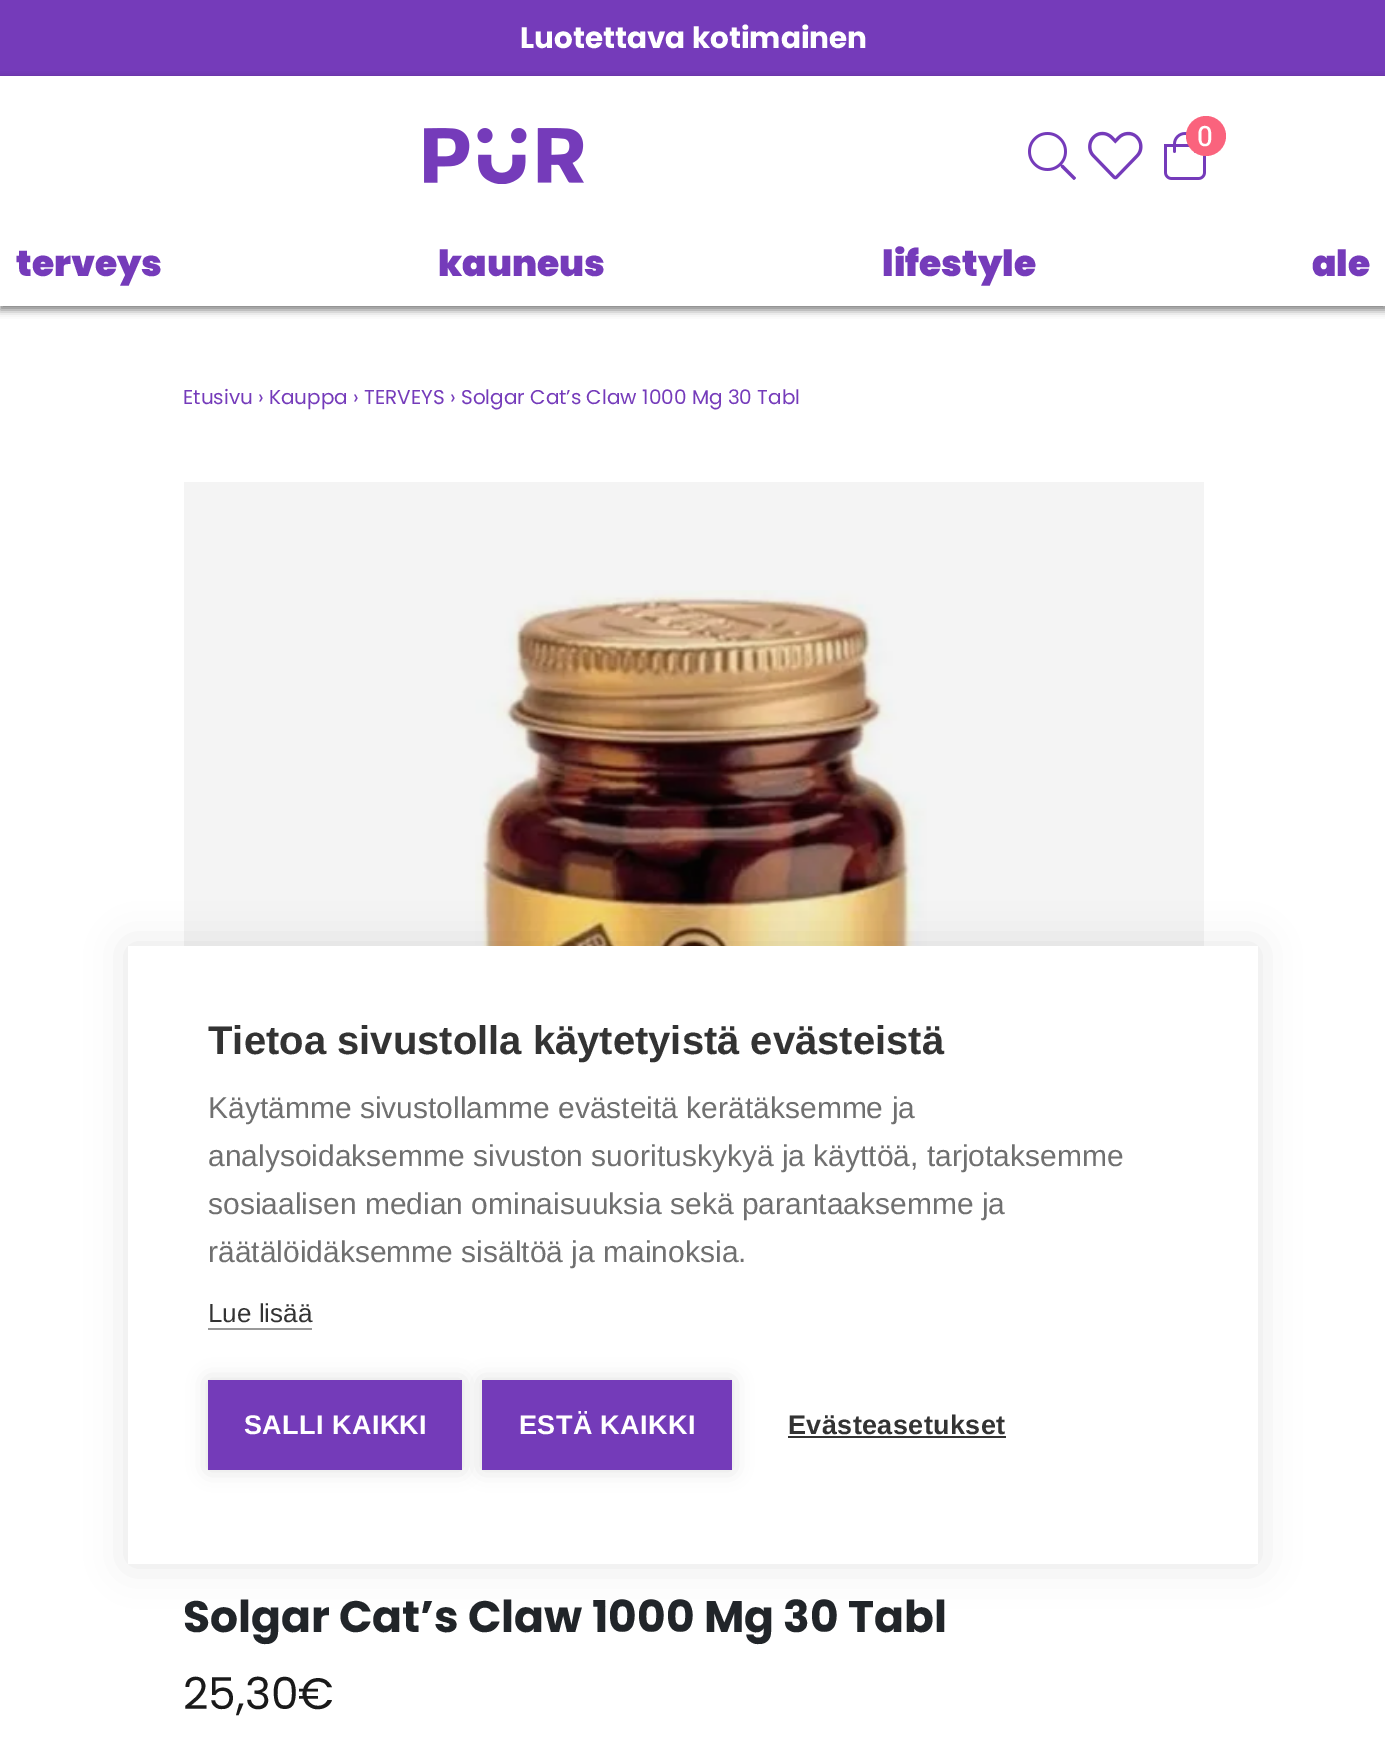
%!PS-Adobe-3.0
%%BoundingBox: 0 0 1385 1743
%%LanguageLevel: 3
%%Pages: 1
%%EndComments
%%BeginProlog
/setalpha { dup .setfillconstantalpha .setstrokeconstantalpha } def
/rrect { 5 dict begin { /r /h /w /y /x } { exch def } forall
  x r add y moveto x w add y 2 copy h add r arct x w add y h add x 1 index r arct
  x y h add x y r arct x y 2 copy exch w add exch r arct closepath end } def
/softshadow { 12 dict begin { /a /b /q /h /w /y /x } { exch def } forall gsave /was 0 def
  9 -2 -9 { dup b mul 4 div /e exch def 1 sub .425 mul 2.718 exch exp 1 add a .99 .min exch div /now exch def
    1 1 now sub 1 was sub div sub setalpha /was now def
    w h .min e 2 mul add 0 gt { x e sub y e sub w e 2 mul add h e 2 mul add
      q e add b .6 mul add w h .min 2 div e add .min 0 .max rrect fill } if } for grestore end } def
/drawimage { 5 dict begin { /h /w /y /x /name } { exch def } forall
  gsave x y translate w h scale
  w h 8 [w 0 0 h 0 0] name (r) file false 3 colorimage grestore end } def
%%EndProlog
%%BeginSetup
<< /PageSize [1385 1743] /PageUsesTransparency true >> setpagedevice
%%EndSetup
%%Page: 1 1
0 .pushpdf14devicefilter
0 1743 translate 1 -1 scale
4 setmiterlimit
1 setgray
0 0 1385 1743 rectfill
0.957 setgray
184 482 1020 464 rectfill
0.459 0.231 0.729 setrgbcolor
0 0 1385 76 rectfill
gsave
newpath 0 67 moveto 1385 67 lineto 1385 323 lineto 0 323 lineto closepath 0 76 moveto 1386 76 lineto 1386 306 lineto 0 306 lineto closepath eoclip newpath
0 setgray
0 80 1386 230 0 4 0.5 softshadow
grestore
(images/1.raw) 424 128 160 56 drawimage
(images/2.raw) 1028 132 48 48 drawimage
(images/3.raw) 1088 131 55 49 drawimage
(images/4.raw) 1164 132 42 48 drawimage
0.98 0.388 0.49 setrgbcolor
newpath 1206 136 20 0 360 arc closepath fill
(images/5.raw) 475 590 452 356 drawimage
0 setgray
128 946 1130 618 0 20 0.1 softshadow
1 setgray
128 946 1130 618 rectfill
0.6 setgray
208 1328 104 2 rectfill
0 setgray
208 1380 254 90 0 10 0.12 softshadow
0.455 0.231 0.725 setrgbcolor
208 1380 254 90 rectfill
0 setgray
482 1380 250 90 0 10 0.12 softshadow
0.455 0.231 0.725 setrgbcolor
482 1380 250 90 rectfill
0.2 setgray
788 1436 218 2 rectfill
/Poppins-Bold [29.5 0 0 -29.5 0 0] selectfont
1 setgray
520 48 moveto (Luotettava kotimainen) show
/Heebo-Medium [28 0 0 -28 0 0] selectfont
1197 146 moveto (0) show
/Poppins-Black [36 0 0 -36 0 0] selectfont
0.459 0.231 0.729 setrgbcolor
16 276 moveto (terveys) show
438 276 moveto (kauneus) show
882 276 moveto (lifestyle) show
1312 276 moveto (ale) show
/Poppins-Regular [20 0 0 -20 0 0] selectfont
183 404 moveto (Etusivu › Kauppa › TERVEYS › Solgar Cat’s Claw 1000 Mg 30 Tabl) show
/LiberationSans-Bold [40 0 0 -40 0 0] selectfont
0.2 setgray
208 1054 moveto (Tietoa sivustolla käytetyistä evästeistä) show
/LiberationSans-Regular [30 0 0 -30 0 0] selectfont
0.439 setgray
208 1118 moveto (Käytämme sivustollamme evästeitä kerätäksemme ja) show
208 1166 moveto (analysoidaksemme sivuston suorituskykyä ja käyttöä, tarjotaksemme) show
208 1214 moveto (sosiaalisen median ominaisuuksia sekä parantaaksemme ja) show
208 1262 moveto (räätälöidäksemme sisältöä ja mainoksia.) show
/LiberationSans-Regular [26 0 0 -26 0 0] selectfont
0.2 setgray
208 1322 moveto (Lue lisää) show
/LiberationSans-Bold [27 0 0 -27 0 0] selectfont
1 setgray
244 1434 moveto 0.4 0 (SALLI KAIKKI) ashow
519 1434 moveto 0.4 0 (ESTÄ KAIKKI) ashow
0.2 setgray
788 1434 moveto 0.4 0 (Evästeasetukset) ashow
/Poppins-Bold [44 0 0 -44 0 0] selectfont
0.129 0.145 0.161 setrgbcolor
183 1632 moveto (Solgar Cat’s Claw 1000 Mg 30 Tabl) show
/Poppins-Regular [44 0 0 -44 0 0] selectfont
0.102 setgray
183 1709 moveto (25,30€) show
.poppdf14devicefilter showpage
%%EOF
